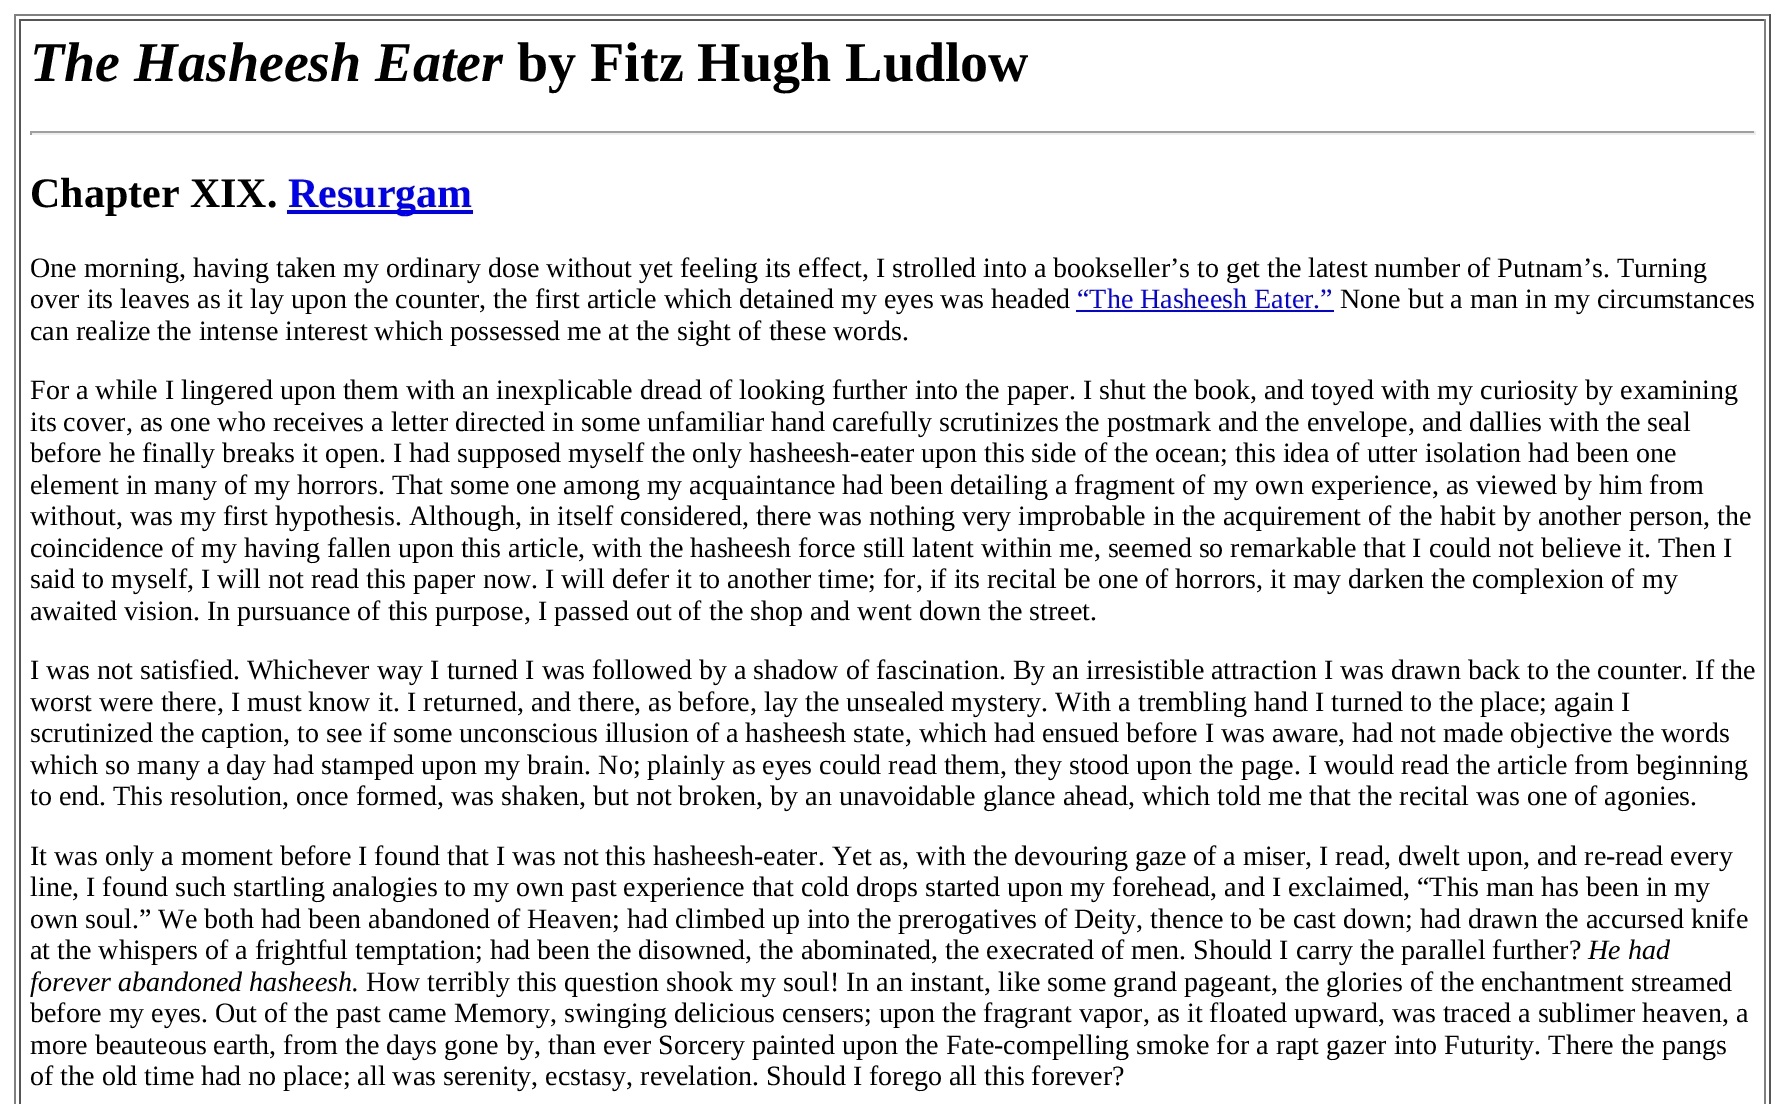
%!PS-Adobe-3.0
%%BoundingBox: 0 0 1784 1104
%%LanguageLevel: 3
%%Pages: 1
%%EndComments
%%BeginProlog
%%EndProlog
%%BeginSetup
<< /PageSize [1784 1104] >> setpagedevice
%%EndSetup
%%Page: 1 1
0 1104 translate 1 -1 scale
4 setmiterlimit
1 setgray
0 0 1784 1104 rectfill
0.502 setgray
14 14 1757 2 rectfill
0.333 setgray
1769 14 2 1090 rectfill
0.502 setgray
14 14 2 1090 rectfill
0.333 setgray
19 19 1747 2 rectfill
0.502 setgray
1764 19 2 1085 rectfill
0.333 setgray
19 19 2 1085 rectfill
0.624 setgray
30 131 1725 2 rectfill
0.933 setgray
1754 131 2 4 rectfill
30 133 1725 2 rectfill
0.624 setgray
30 131 2 4 rectfill
0 0 0.933 setrgbcolor
287 210 186 4 rectfill
1076 310 258 2 rectfill
/LiberationSerif-BoldItalic [56 0 0 -56 0 0] selectfont
0 setgray
30 81 moveto (The Hasheesh Eater) show
/LiberationSerif-Bold [56 0 0 -56 0 0] selectfont
517 81 moveto (by Fitz Hugh Ludlow) show
/LiberationSerif-Bold [42 0 0 -42 0 0] selectfont
30 207 moveto (Chapter XIX.) show
0 0 0.933 setrgbcolor
288 207 moveto (Resurgam) show
/LiberationSerif-Regular [28 0 0 -28 0 0] selectfont
0 setgray
30 277 moveto (One morning, having taken my ordinary dose without yet feeling its effect, I strolled into a bookseller’s to get the latest number of Putnam’s. Turning) show
30 308 moveto (over its leaves as it lay upon the counter, the first article which detained my eyes was headed) show
0 0 0.933 setrgbcolor
1077 308 moveto (“The Hasheesh Eater.”) show
0 setgray
1340 308 moveto (None but a man in my circumstances) show
30 340 moveto (can realize the intense interest which possessed me at the sight of these words.) show
30 399 moveto (For a while I lingered upon them with an inexplicable dread of looking further into the paper. I shut the book, and toyed with my curiosity by examining) show
30 431 moveto (its cover, as one who receives a letter directed in some unfamiliar hand carefully scrutinizes the postmark and the envelope, and dallies with the seal) show
30 462 moveto (before he finally breaks it open. I had supposed myself the only hasheesh-eater upon this side of the ocean; this idea of utter isolation had been one) show
30 494 moveto (element in many of my horrors. That some one among my acquaintance had been detailing a fragment of my own experience, as viewed by him from) show
30 525 moveto (without, was my first hypothesis. Although, in itself considered, there was nothing very improbable in the acquirement of the habit by another person, the) show
30 557 moveto (coincidence of my having fallen upon this article, with the hasheesh force still latent within me, seemed so remarkable that I could not believe it. Then I) show
30 588 moveto (said to myself, I will not read this paper now. I will defer it to another time; for, if its recital be one of horrors, it may darken the complexion of my) show
30 620 moveto (awaited vision. In pursuance of this purpose, I passed out of the shop and went down the street.) show
30 679 moveto (I was not satisfied. Whichever way I turned I was followed by a shadow of fascination. By an irresistible attraction I was drawn back to the counter. If the) show
30 711 moveto (worst were there, I must know it. I returned, and there, as before, lay the unsealed mystery. With a trembling hand I turned to the place; again I) show
30 742 moveto (scrutinized the caption, to see if some unconscious illusion of a hasheesh state, which had ensued before I was aware, had not made objective the words) show
30 774 moveto (which so many a day had stamped upon my brain. No; plainly as eyes could read them, they stood upon the page. I would read the article from beginning) show
30 805 moveto (to end. This resolution, once formed, was shaken, but not broken, by an unavoidable glance ahead, which told me that the recital was one of agonies.) show
30 865 moveto (It was only a moment before I found that I was not this hasheesh-eater. Yet as, with the devouring gaze of a miser, I read, dwelt upon, and re-read every) show
30 896 moveto (line, I found such startling analogies to my own past experience that cold drops started upon my forehead, and I exclaimed, “This man has been in my) show
30 928 moveto (own soul.” We both had been abandoned of Heaven; had climbed up into the prerogatives of Deity, thence to be cast down; had drawn the accursed knife) show
30 959 moveto (at the whispers of a frightful temptation; had been the disowned, the abominated, the execrated of men. Should I carry the parallel further?) show
/LiberationSerif-Italic [28 0 0 -28 0 0] selectfont
1588 959 moveto (He had) show
30 991 moveto (forever abandoned hasheesh.) show
/LiberationSerif-Regular [28 0 0 -28 0 0] selectfont
366 991 moveto (How terribly this question shook my soul! In an instant, like some grand pageant, the glories of the enchantment streamed) show
30 1022 moveto (before my eyes. Out of the past came Memory, swinging delicious censers; upon the fragrant vapor, as it floated upward, was traced a sublimer heaven, a) show
30 1054 moveto (more beauteous earth, from the days gone by, than ever Sorcery painted upon the Fate-compelling smoke for a rapt gazer into Futurity. There the pangs) show
30 1085 moveto (of the old time had no place; all was serenity, ecstasy, revelation. Should I forego all this forever?) show
showpage
%%EOF
